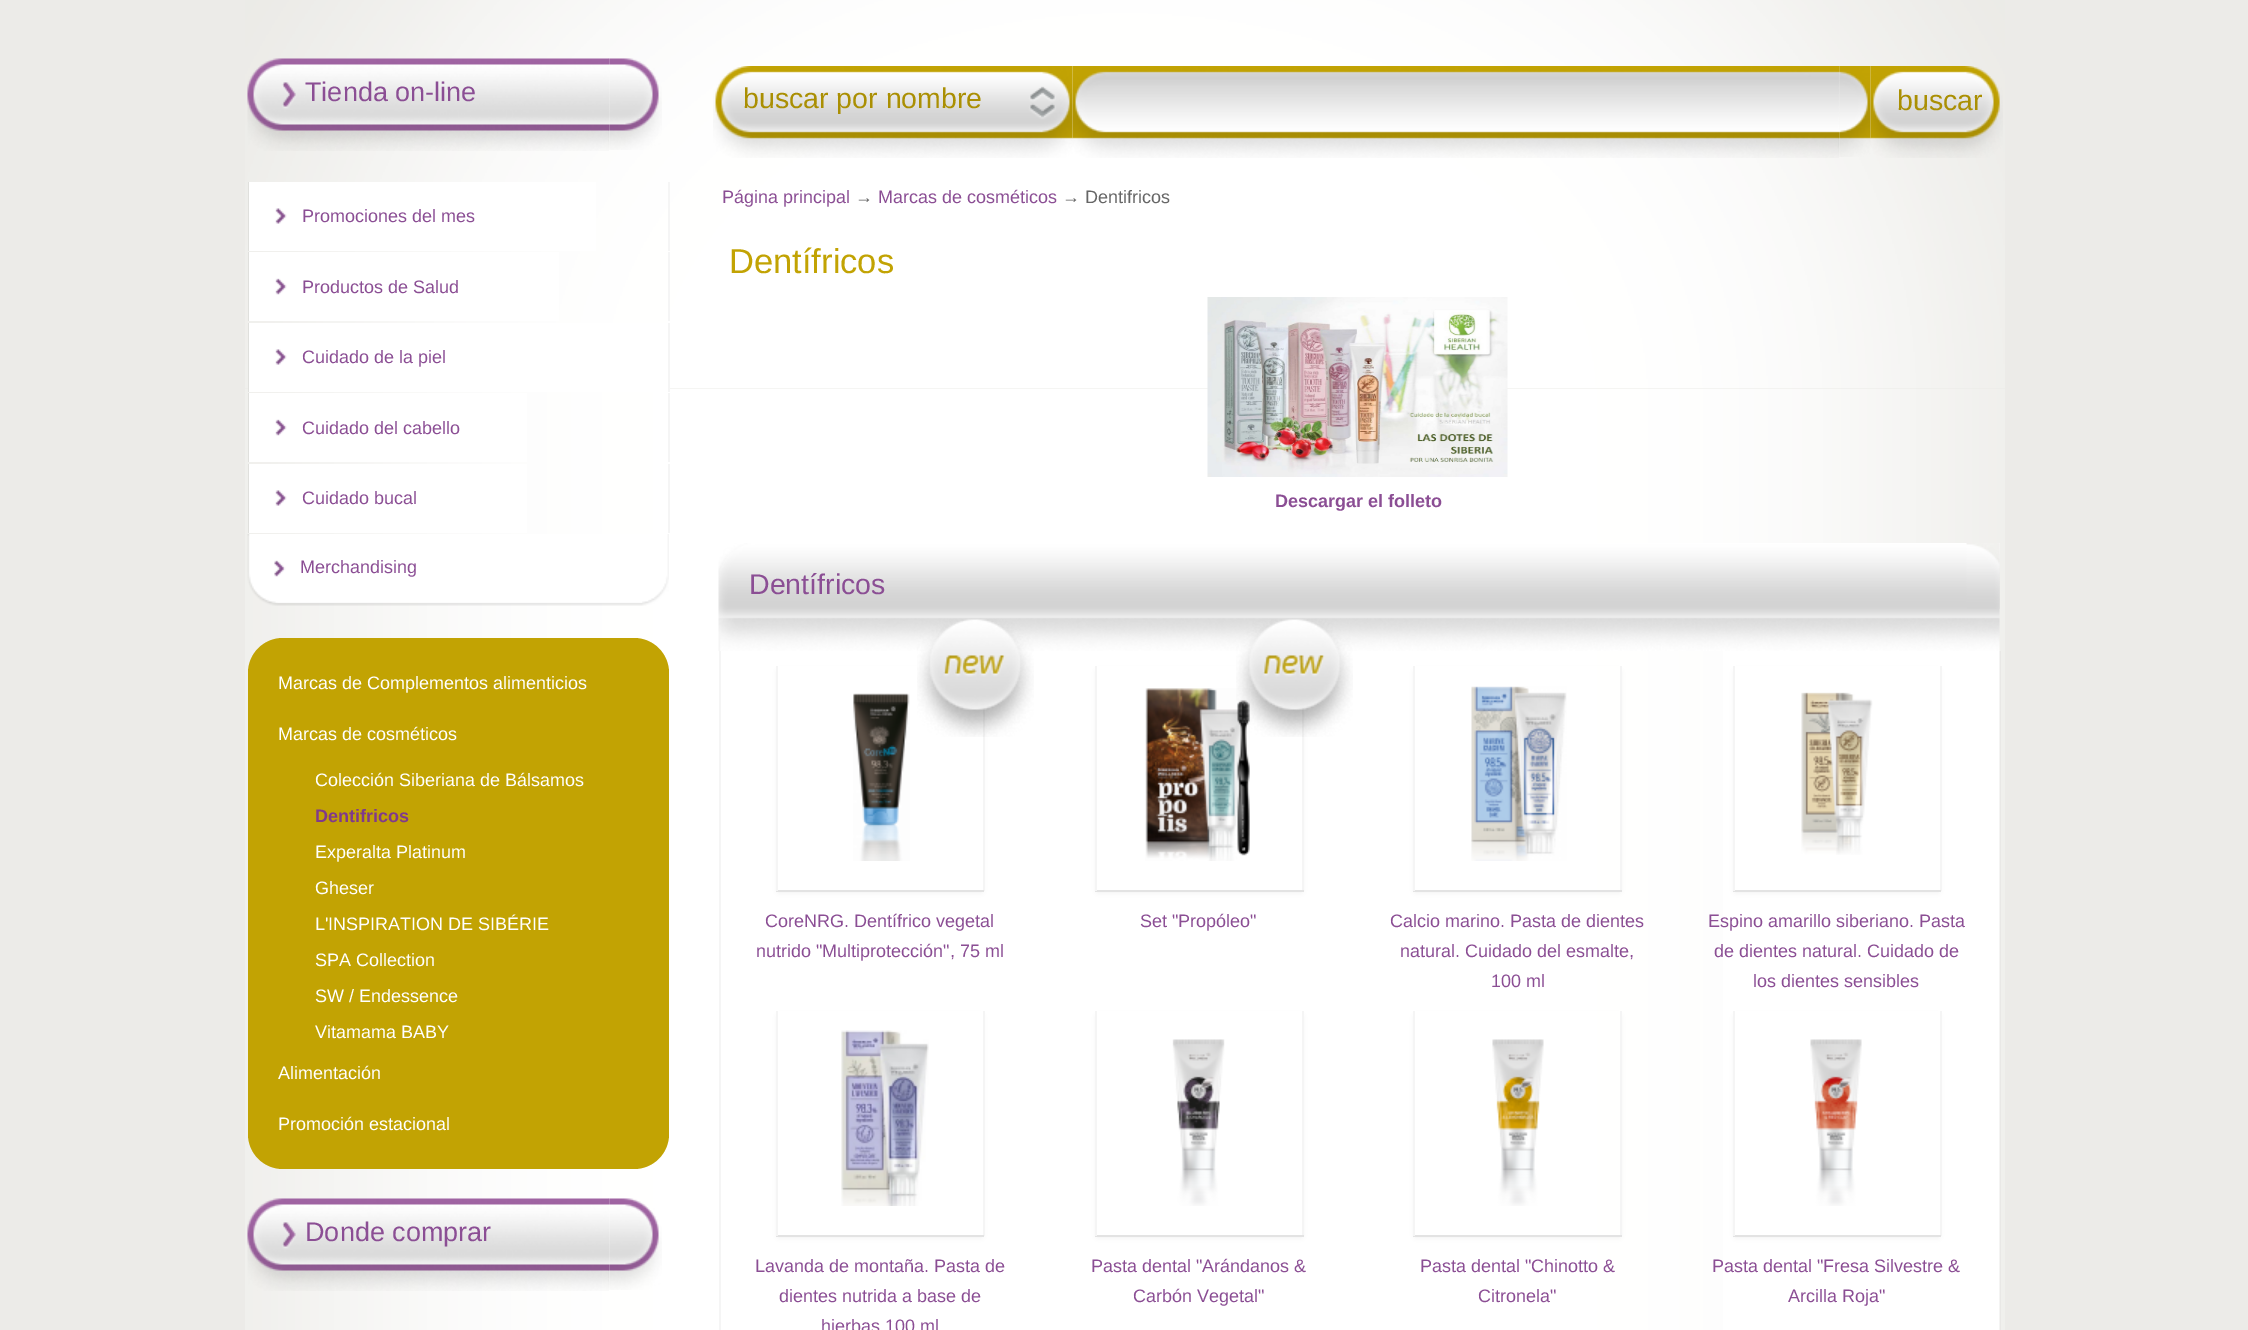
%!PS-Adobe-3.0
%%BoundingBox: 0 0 2248 1330
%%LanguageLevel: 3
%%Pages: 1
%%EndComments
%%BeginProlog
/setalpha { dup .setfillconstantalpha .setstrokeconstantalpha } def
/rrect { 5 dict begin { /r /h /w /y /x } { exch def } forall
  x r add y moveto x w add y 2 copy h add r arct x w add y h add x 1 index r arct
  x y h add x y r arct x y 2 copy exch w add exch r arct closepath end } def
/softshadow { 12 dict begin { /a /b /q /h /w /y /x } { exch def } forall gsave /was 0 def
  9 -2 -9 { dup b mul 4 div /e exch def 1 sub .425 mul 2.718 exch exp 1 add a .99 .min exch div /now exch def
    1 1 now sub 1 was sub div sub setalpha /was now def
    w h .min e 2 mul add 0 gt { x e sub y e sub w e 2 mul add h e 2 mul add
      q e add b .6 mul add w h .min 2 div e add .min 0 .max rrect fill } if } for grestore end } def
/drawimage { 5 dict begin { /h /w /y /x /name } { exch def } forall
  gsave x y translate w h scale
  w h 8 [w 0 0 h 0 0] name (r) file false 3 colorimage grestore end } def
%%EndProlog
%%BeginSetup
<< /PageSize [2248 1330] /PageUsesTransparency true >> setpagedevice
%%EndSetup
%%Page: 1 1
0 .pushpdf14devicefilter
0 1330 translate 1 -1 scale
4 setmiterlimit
0.925 0.922 0.91 setrgbcolor
0 0 2248 1330 rectfill
(images/1.raw) 245 389 1760 941 drawimage
(images/2.raw) 245 0 1760 389 drawimage
(images/3.raw) 608 58 54 92 drawimage
(images/4.raw) 247 58 362 93 drawimage
0.961 setgray
668 182 2 69 rectfill
0.878 0.878 0.867 setrgbcolor
248 182 1 69 rectfill
1 setgray
249 182 347 69 rectfill
(images/5.raw) 275 208 12 16 drawimage
0.961 setgray
668 252 2 69 rectfill
0.878 0.878 0.867 setrgbcolor
248 252 1 69 rectfill
1 setgray
249 252 310 69 rectfill
(images/6.raw) 275 278 12 17 drawimage
0.961 setgray
668 323 2 69 rectfill
0.878 0.878 0.867 setrgbcolor
248 323 1 69 rectfill
1 setgray
249 323 419 69 rectfill
(images/5.raw) 275 349 12 16 drawimage
0.961 setgray
668 393 2 69 rectfill
0.878 0.878 0.867 setrgbcolor
248 393 1 69 rectfill
1 setgray
249 393 278 69 rectfill
(images/6.raw) 275 419 12 17 drawimage
0.961 setgray
668 464 2 69 rectfill
0.878 0.878 0.867 setrgbcolor
248 464 1 69 rectfill
1 setgray
249 464 278 69 rectfill
(images/5.raw) 275 490 12 16 drawimage
(images/7.raw) 247 534 421 72 drawimage
(images/8.raw) 642 534 27 72 drawimage
0.761 0.639 0.012 setrgbcolor
248 638 421 531 35 rrect fill
(images/9.raw) 608 1198 54 92 drawimage
(images/10.raw) 247 1198 362 93 drawimage
(images/11.raw) 713 66 360 92 drawimage
(images/12.raw) 1072 66 767 92 drawimage
(images/13.raw) 1838 66 33 91 drawimage
(images/14.raw) 1870 66 133 92 drawimage
(images/15.raw) 1207 297 301 180 drawimage
(images/16.raw) 718 543 1282 108 drawimage
(images/17.raw) 1966 543 34 66 drawimage
1 setgray
1723 651 276 679 rectfill
(images/18.raw) 1999 651 2 679 drawimage
0.961 setgray
719 651 2 679 rectfill
gsave
newpath 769 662 moveto 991 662 lineto 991 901 lineto 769 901 lineto closepath 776 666 moveto 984 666 lineto 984 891 lineto 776 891 lineto closepath eoclip newpath
0.89 setgray
779 672 202 219 0 3 1 softshadow
grestore
983 707 2 184 rectfill
(images/19.raw) 917 619 117 118 drawimage
0.89 setgray
776 890 208 2 rectfill
0.961 setgray
776 666 2 225 rectfill
(images/20.raw) 853 693 57 168 drawimage
gsave
newpath 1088 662 moveto 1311 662 lineto 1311 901 lineto 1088 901 lineto closepath 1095 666 moveto 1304 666 lineto 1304 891 lineto 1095 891 lineto closepath eoclip newpath
0.89 setgray
1098 672 203 219 0 3 1 softshadow
grestore
1302 707 2 184 rectfill
(images/22.raw) 1145 688 105 173 drawimage
(images/21.raw) 1236 619 117 118 drawimage
0.89 setgray
1095 890 209 2 rectfill
0.961 setgray
1095 666 2 225 rectfill
gsave
newpath 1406 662 moveto 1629 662 lineto 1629 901 lineto 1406 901 lineto closepath 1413 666 moveto 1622 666 lineto 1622 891 lineto 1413 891 lineto closepath eoclip newpath
0.89 setgray
1416 672 203 219 0 3 1 softshadow
grestore
1620 666 2 225 rectfill
0.89 setgray
1413 890 209 2 rectfill
0.961 setgray
1413 666 2 225 rectfill
(images/23.raw) 1471 686 96 175 drawimage
gsave
newpath 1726 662 moveto 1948 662 lineto 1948 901 lineto 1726 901 lineto closepath 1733 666 moveto 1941 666 lineto 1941 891 lineto 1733 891 lineto closepath eoclip newpath
0.89 setgray
1736 672 202 219 0 3 1 softshadow
grestore
1940 666 2 225 rectfill
0.89 setgray
1733 890 208 2 rectfill
0.961 setgray
1733 666 2 225 rectfill
(images/24.raw) 1801 692 72 163 drawimage
gsave
newpath 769 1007 moveto 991 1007 lineto 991 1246 lineto 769 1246 lineto closepath 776 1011 moveto 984 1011 lineto 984 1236 lineto 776 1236 lineto closepath eoclip newpath
0.89 setgray
779 1017 202 219 0 3 1 softshadow
grestore
983 1011 2 225 rectfill
0.89 setgray
776 1235 208 2 rectfill
0.961 setgray
776 1011 2 225 rectfill
(images/25.raw) 841 1030 88 176 drawimage
gsave
newpath 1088 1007 moveto 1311 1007 lineto 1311 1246 lineto 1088 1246 lineto closepath 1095 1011 moveto 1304 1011 lineto 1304 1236 lineto 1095 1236 lineto closepath eoclip newpath
0.89 setgray
1098 1017 203 219 0 3 1 softshadow
grestore
1302 1011 2 225 rectfill
0.89 setgray
1095 1235 209 2 rectfill
0.961 setgray
1095 1011 2 225 rectfill
(images/26.raw) 1172 1039 53 167 drawimage
gsave
newpath 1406 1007 moveto 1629 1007 lineto 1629 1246 lineto 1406 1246 lineto closepath 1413 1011 moveto 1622 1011 lineto 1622 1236 lineto 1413 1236 lineto closepath eoclip newpath
0.89 setgray
1416 1017 203 219 0 3 1 softshadow
grestore
1620 1011 2 225 rectfill
0.89 setgray
1413 1235 209 2 rectfill
0.961 setgray
1413 1011 2 225 rectfill
(images/27.raw) 1492 1039 52 167 drawimage
gsave
newpath 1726 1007 moveto 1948 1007 lineto 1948 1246 lineto 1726 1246 lineto closepath 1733 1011 moveto 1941 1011 lineto 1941 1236 lineto 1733 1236 lineto closepath eoclip newpath
0.89 setgray
1736 1017 202 219 0 3 1 softshadow
grestore
1940 1011 2 225 rectfill
0.89 setgray
1733 1235 208 2 rectfill
0.961 setgray
1733 1011 2 225 rectfill
(images/28.raw) 1810 1039 52 167 drawimage
/LiberationSans-Regular [27 0 0 -27 0 0] selectfont
0.545 0.306 0.58 setrgbcolor
305 101 moveto (Tienda on-line) show
/LiberationSans-Regular [18 0 0 -18 0 0] selectfont
302 222 moveto (Promociones del mes) show
302 293 moveto (Productos de Salud) show
302 363 moveto (Cuidado de la piel) show
302 434 moveto (Cuidado del cabello) show
302 504 moveto (Cuidado bucal) show
300 573 moveto (Merchandising) show
1 setgray
278 689 moveto (Marcas de Complementos alimenticios) show
278 740 moveto (Marcas de cosméticos) show
315 786 moveto (Colección Siberiana de Bálsamos) show
/LiberationSans-Bold [18 0 0 -18 0 0] selectfont
0.502 0.227 0.545 setrgbcolor
315 822 moveto (Dentifricos) show
/LiberationSans-Regular [18 0 0 -18 0 0] selectfont
1 setgray
315 858 moveto (Experalta Platinum) show
315 894 moveto (Gheser) show
315 930 moveto (L'INSPIRATION DE SIBÉRIE) show
315 966 moveto (SPA Collection) show
315 1002 moveto (SW / Endessence) show
315 1038 moveto (Vitamama BABY) show
278 1079 moveto (Alimentación) show
278 1130 moveto (Promoción estacional) show
/LiberationSans-Regular [27 0 0 -27 0 0] selectfont
0.545 0.306 0.58 setrgbcolor
305 1241 moveto (Donde comprar) show
/LiberationSans-Regular [28.5 0 0 -28.5 0 0] selectfont
0.667 0.561 0.012 setrgbcolor
743 108 moveto (buscar por nombre) show
1897 110 moveto (buscar) show
/LiberationSans-Regular [18 0 0 -18 0 0] selectfont
0.545 0.306 0.58 setrgbcolor
722 203 moveto (Página principal) show
0.4 setgray
855 203 moveto (→) show
0.545 0.306 0.58 setrgbcolor
878 203 moveto (Marcas de cosméticos) show
0.4 setgray
1062 203 moveto (→ Dentifricos) show
/LiberationSans-Regular [34.5 0 0 -34.5 0 0] selectfont
0.761 0.639 0.012 setrgbcolor
729 273 moveto (Dentífricos) show
/LiberationSans-Bold [18 0 0 -18 0 0] selectfont
0.545 0.306 0.58 setrgbcolor
1275 507 moveto (Descargar el folleto) show
/LiberationSans-Regular [28.5 0 0 -28.5 0 0] selectfont
749 594 moveto (Dentífricos) show
/LiberationSans-Regular [18 0 0 -18 0 0] selectfont
765 927 moveto (CoreNRG. Dentífrico vegetal) show
756 957 moveto (nutrido "Multiprotección", 75 ml) show
1140 927 moveto (Set "Propóleo") show
1390 927 moveto (Calcio marino. Pasta de dientes) show
1400 957 moveto (natural. Cuidado del esmalte,) show
1491 987 moveto (100 ml) show
1708 927 moveto (Espino amarillo siberiano. Pasta) show
1714 957 moveto (de dientes natural. Cuidado de) show
1753 987 moveto (los dientes sensibles) show
755 1272 moveto (Lavanda de montaña. Pasta de) show
779 1302 moveto (dientes nutrida a base de) show
821 1332 moveto (hierbas,100 ml) show
1091 1272 moveto (Pasta dental "Arándanos &) show
1133 1302 moveto (Carbón Vegetal") show
1420 1272 moveto (Pasta dental "Chinotto &) show
1478 1302 moveto (Citronela") show
1712 1272 moveto (Pasta dental "Fresa Silvestre &) show
1788 1302 moveto (Arcilla Roja") show
.poppdf14devicefilter showpage
%%EOF
